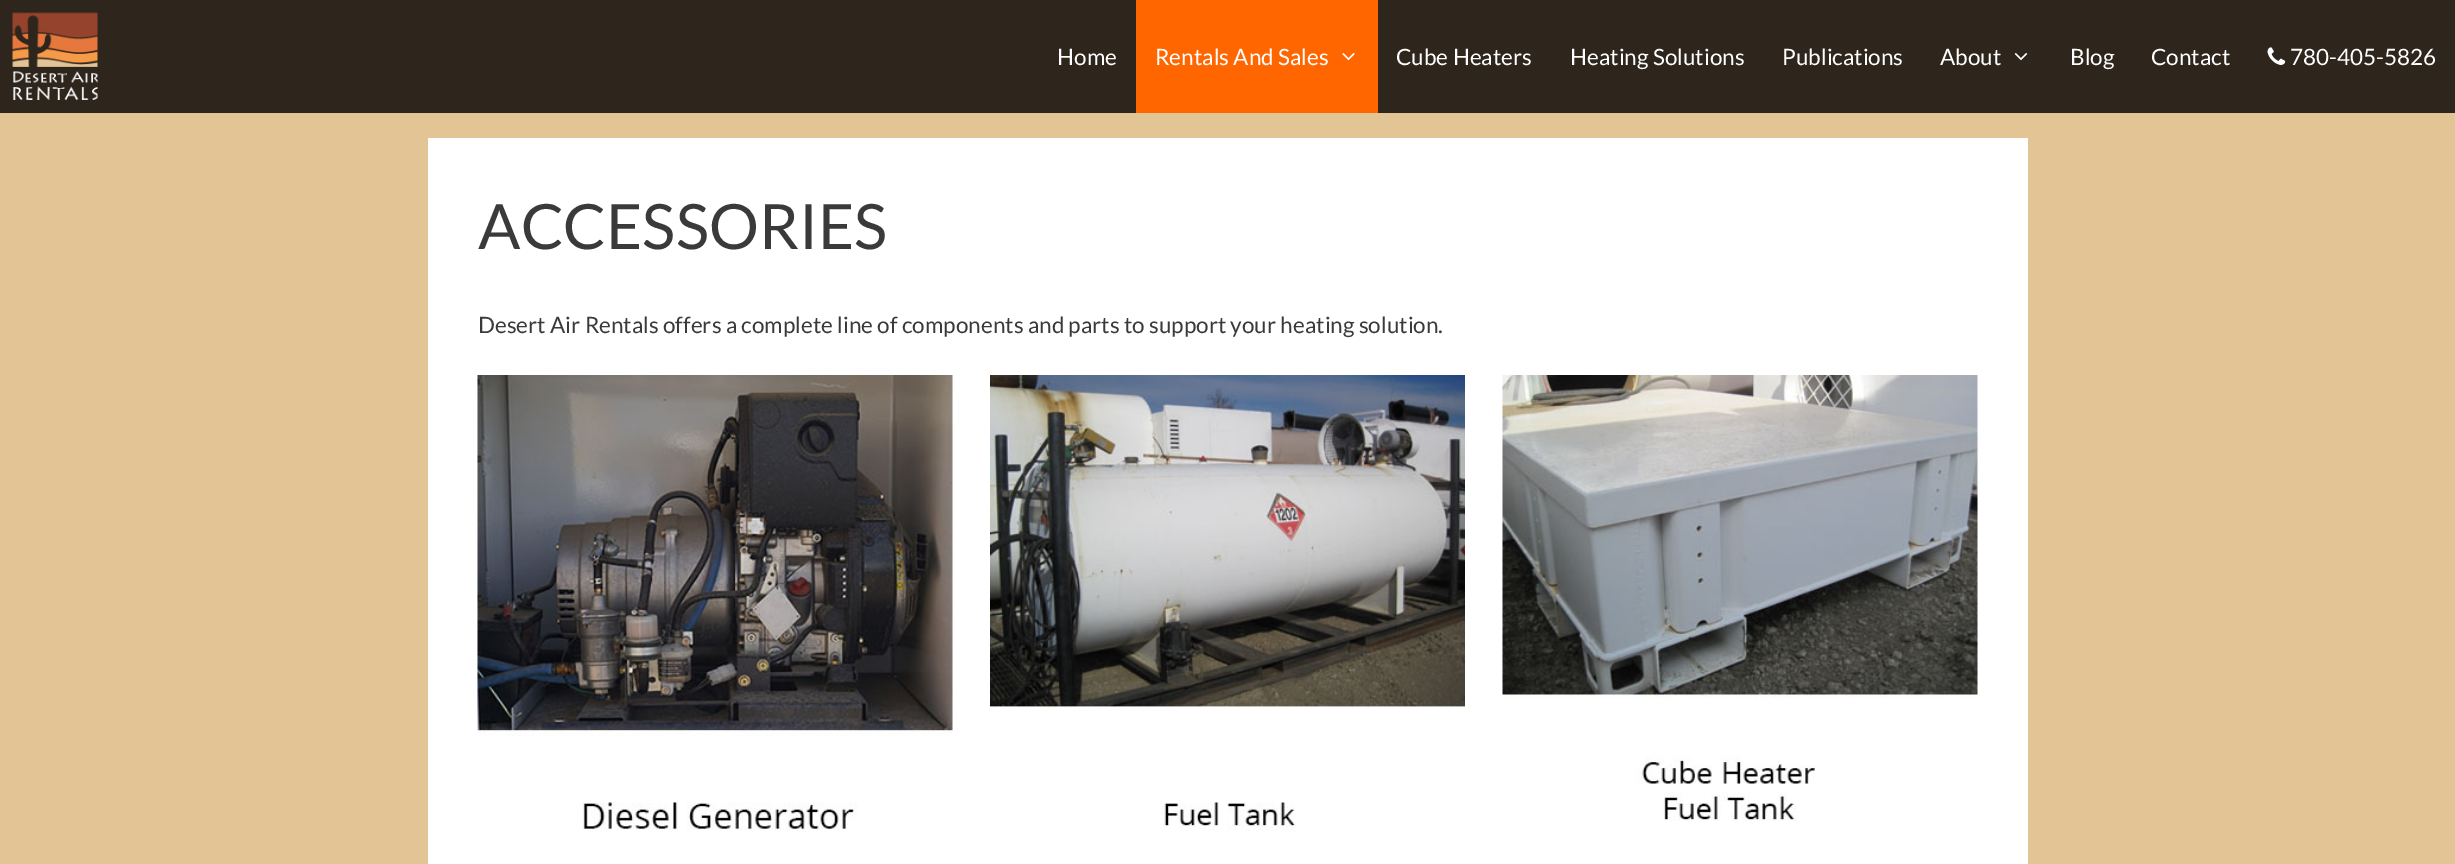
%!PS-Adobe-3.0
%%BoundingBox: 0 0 2455 864
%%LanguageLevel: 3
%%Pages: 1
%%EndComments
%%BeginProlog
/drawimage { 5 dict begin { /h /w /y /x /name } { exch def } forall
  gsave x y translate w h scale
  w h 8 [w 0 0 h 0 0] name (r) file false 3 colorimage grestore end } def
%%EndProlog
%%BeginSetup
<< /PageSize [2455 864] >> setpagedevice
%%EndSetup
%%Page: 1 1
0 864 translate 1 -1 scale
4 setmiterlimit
0.89 0.769 0.584 setrgbcolor
0 0 2455 864 rectfill
0.18 0.145 0.11 setrgbcolor
0 0 2455 113 rectfill
(images/1.raw) 12 12 86 88 drawimage
1 0.4 0 setrgbcolor
1136 0 242 113 rectfill
(images/2.raw) 1342 53 13 8 drawimage
(images/3.raw) 2014 53 14 8 drawimage
(images/4.raw) 2267 47 19 18 drawimage
1 setgray
428 138 1600 726 rectfill
(images/5.raw) 477 375 476 456 drawimage
(images/6.raw) 990 375 475 456 drawimage
(images/7.raw) 1502 375 476 446 drawimage
/Lato-Regular [22.5 0 0 -22.5 0 0] selectfont
1057 65 moveto (Home) show
1155 65 moveto (Rentals And Sales) show
1396 65 moveto (Cube Heaters) show
1570 65 moveto (Heating Solutions) show
1782 65 moveto (Publications) show
1940 65 moveto (About) show
2070 65 moveto (Blog) show
2151 65 moveto (Contact) show
2290 65 moveto (780-405-5826) show
/Lato-Regular [62.5 0 0 -62.5 0 0] selectfont
0.227 setgray
478 249 moveto (ACCESSORIES) show
/Lato-Regular [22.5 0 0 -22.5 0 0] selectfont
478 333 moveto (Desert Air Rentals offers a complete line of components and parts to support your heating solution.) show
showpage
%%EOF
